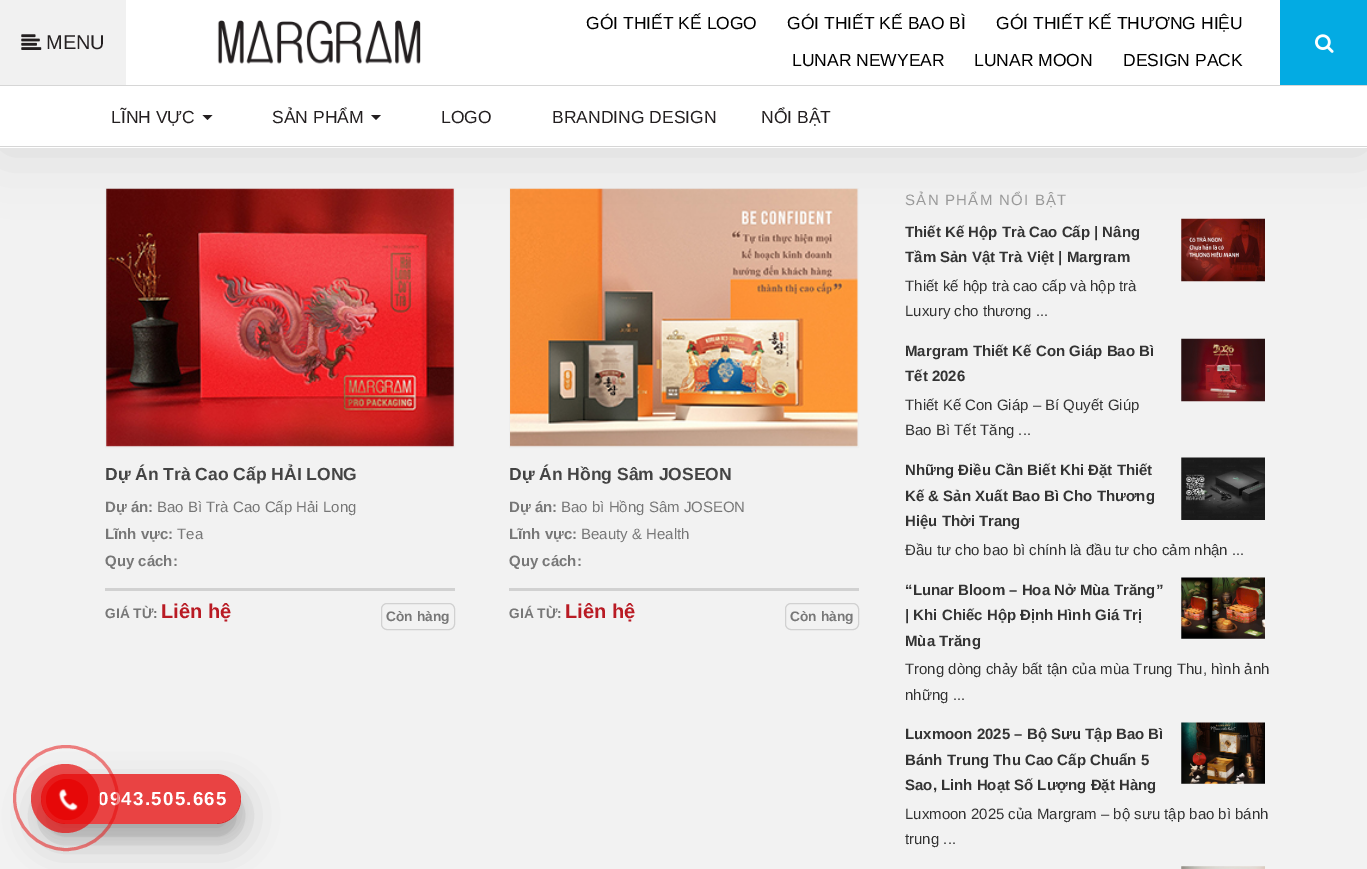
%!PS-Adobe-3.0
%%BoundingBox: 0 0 1367 869
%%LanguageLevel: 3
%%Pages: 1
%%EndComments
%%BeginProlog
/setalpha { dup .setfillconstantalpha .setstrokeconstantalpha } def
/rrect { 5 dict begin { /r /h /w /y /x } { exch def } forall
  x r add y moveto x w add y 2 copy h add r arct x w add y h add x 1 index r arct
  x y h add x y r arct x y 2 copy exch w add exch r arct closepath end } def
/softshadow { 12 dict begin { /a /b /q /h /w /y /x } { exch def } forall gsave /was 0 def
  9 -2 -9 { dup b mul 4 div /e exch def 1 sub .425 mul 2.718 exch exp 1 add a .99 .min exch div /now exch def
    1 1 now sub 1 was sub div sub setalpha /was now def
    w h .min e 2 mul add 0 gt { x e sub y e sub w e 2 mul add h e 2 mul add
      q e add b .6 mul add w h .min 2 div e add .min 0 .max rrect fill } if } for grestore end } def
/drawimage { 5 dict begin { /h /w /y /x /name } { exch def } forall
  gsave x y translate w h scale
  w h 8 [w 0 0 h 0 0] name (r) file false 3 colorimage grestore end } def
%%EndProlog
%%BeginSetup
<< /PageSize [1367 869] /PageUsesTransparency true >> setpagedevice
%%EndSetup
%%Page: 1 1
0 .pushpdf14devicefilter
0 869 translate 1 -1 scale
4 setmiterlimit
0.949 setgray
0 0 1367 869 rectfill
0.933 setgray
105.5 188.5 349 259 rectstroke
(images/4.raw) 106 188 348 259 drawimage
509.5 188.5 349 259 rectstroke
(images/5.raw) 510 188 348 259 drawimage
(images/6.raw) 1181 218 84 64 drawimage
0 setgray
0 3 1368 147 0 31 0.1 softshadow
1 setgray
0 0 1367 148 rectfill
0.945 setgray
0 0 126 85 rectfill
(images/1.raw) 21 34 21 16 drawimage
(images/2.raw) 217 20 204 44 drawimage
0.012 0.671 0.89 setrgbcolor
1280 0 87 85 rectfill
(images/3.raw) 1315 34 19 19 drawimage
0.839 setgray
0 85 1367 1 rectfill
0 146 1367 1 rectfill
0.137 0.122 0.125 setrgbcolor
newpath 202.5 115 moveto 212.5 115 lineto 207.5 120 lineto closepath fill
newpath 371 115 moveto 381 115 lineto 376 120 lineto closepath fill
0.82 setgray
105 588 350 3 rectfill
381.5 603.5 73 26 5.5 rrect stroke
509 588 350 3 rectfill
785.5 603.5 73 26 5.5 rrect stroke
(images/7.raw) 1181 338 84 64 drawimage
(images/8.raw) 1181 457 84 63 drawimage
(images/9.raw) 1181 577 84 62 drawimage
(images/10.raw) 1181 722 84 62 drawimage
(images/11.raw) 1181 866 84 3 drawimage
gsave
newpath 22 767 moveto 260 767 lineto 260 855 lineto 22 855 lineto closepath 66 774 moveto 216 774 lineto 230 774 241 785 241 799 curveto 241 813 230 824 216 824 curveto 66 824 lineto 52 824 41 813 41 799 curveto 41 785 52 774 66 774 curveto closepath eoclip newpath
0 setgray
41 786 200 50 25 6 0.1 softshadow
grestore
gsave
newpath 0 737 moveto 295 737 lineto 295 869 lineto 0 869 lineto closepath 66 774 moveto 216 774 lineto 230 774 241 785 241 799 curveto 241 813 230 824 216 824 curveto 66 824 lineto 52 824 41 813 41 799 curveto 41 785 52 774 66 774 curveto closepath eoclip newpath
0 setgray
41 791 200 50 25 17.5 0.25 softshadow
grestore
0.75 setalpha
0.902 0.031 0.031 setrgbcolor
41 774 200 50 25 rrect fill
/LiberationSans-Regular [20 0 0 -20 0 0] selectfont
1 setalpha
0.137 0.122 0.125 setrgbcolor
46 49 moveto (MENU) show
/LiberationSans-Regular [17.5 0 0 -17.5 0 0] selectfont
0 setgray
586 29 moveto (GÓI THIẾT KẾ LOGO) show
787 29 moveto (GÓI THIẾT KẾ BAO BÌ) show
996 29 moveto (GÓI THIẾT KẾ THƯƠNG HIỆU) show
792 66 moveto (LUNAR NEWYEAR) show
974 66 moveto (LUNAR MOON) show
1123 66 moveto (DESIGN PACK) show
0.137 0.122 0.125 setrgbcolor
111 123 moveto (LĨNH VỰC) show
272 123 moveto (SẢN PHẨM) show
441 123 moveto (LOGO) show
552 123 moveto (BRANDING DESIGN) show
761 123 moveto (NỔI BẬT) show
/LiberationSans-Bold [17.5 0 0 -17.5 0 0] selectfont
0.267 setgray
105 480 moveto (Dự Án Trà Cao Cấp HẢI LONG) show
/LiberationSans-Bold [15 0 0 -15 0 0] selectfont
0.467 setgray
105 512 moveto (Dự án:) show
/LiberationSans-Regular [15 0 0 -15 0 0] selectfont
157 512 moveto (Bao Bì Trà Cao Cấp Hải Long) show
/LiberationSans-Bold [15 0 0 -15 0 0] selectfont
105 539 moveto (Lĩnh vực:) show
/LiberationSans-Regular [15 0 0 -15 0 0] selectfont
177 539 moveto (Tea) show
/LiberationSans-Bold [15 0 0 -15 0 0] selectfont
105 566 moveto (Quy cách:) show
/LiberationSans-Bold [13.75 0 0 -13.75 0 0] selectfont
105 618 moveto (GIÁ TỪ:) show
/LiberationSans-Bold [20 0 0 -20 0 0] selectfont
0.725 0.106 0.141 setrgbcolor
161 618 moveto (Liên hệ) show
/LiberationSans-Bold [13.75 0 0 -13.75 0 0] selectfont
0.467 setgray
386 621 moveto (Còn hàng) show
/LiberationSans-Bold [17.5 0 0 -17.5 0 0] selectfont
0.267 setgray
509 480 moveto (Dự Án Hồng Sâm JOSEON) show
/LiberationSans-Bold [15 0 0 -15 0 0] selectfont
0.467 setgray
509 512 moveto (Dự án:) show
/LiberationSans-Regular [15 0 0 -15 0 0] selectfont
561 512 moveto (Bao bì Hồng Sâm JOSEON) show
/LiberationSans-Bold [15 0 0 -15 0 0] selectfont
509 539 moveto (Lĩnh vực:) show
/LiberationSans-Regular [15 0 0 -15 0 0] selectfont
581 539 moveto (Beauty & Health) show
/LiberationSans-Bold [15 0 0 -15 0 0] selectfont
509 566 moveto (Quy cách:) show
/LiberationSans-Bold [13.75 0 0 -13.75 0 0] selectfont
509 618 moveto (GIÁ TỪ:) show
/LiberationSans-Bold [20 0 0 -20 0 0] selectfont
0.725 0.106 0.141 setrgbcolor
565 618 moveto (Liên hệ) show
/LiberationSans-Bold [13.75 0 0 -13.75 0 0] selectfont
0.467 setgray
790 621 moveto (Còn hàng) show
/LiberationSans-Regular [15 0 0 -15 0 0] selectfont
0.6 setgray
905 205 moveto 1.25 0 (SẢN PHẨM NỔI BẬT) ashow
/LiberationSans-Bold [15 0 0 -15 0 0] selectfont
0.2 setgray
905 237 moveto (Thiết Kế Hộp Trà Cao Cấp | Nâng) show
905 262 moveto (Tầm Sản Vật Trà Việt | Margram) show
/LiberationSans-Regular [15 0 0 -15 0 0] selectfont
905 291 moveto (Thiết kế hộp trà cao cấp và hộp trà) show
905 316 moveto (Luxury cho thương ...) show
/LiberationSans-Bold [15 0 0 -15 0 0] selectfont
905 356 moveto (Margram Thiết Kế Con Giáp Bao Bì) show
905 381 moveto (Tết 2026) show
/LiberationSans-Regular [15 0 0 -15 0 0] selectfont
905 410 moveto (Thiết Kế Con Giáp – Bí Quyết Giúp) show
905 435 moveto (Bao Bì Tết Tăng ...) show
/LiberationSans-Bold [15 0 0 -15 0 0] selectfont
905 475 moveto (Những Điều Cần Biết Khi Đặt Thiết) show
905 501 moveto (Kế & Sản Xuất Bao Bì Cho Thương) show
905 526 moveto (Hiệu Thời Trang) show
/LiberationSans-Regular [15 0 0 -15 0 0] selectfont
905 555 moveto (Đầu tư cho bao bì chính là đầu tư cho cảm nhận ...) show
/LiberationSans-Bold [15 0 0 -15 0 0] selectfont
905 595 moveto (“Lunar Bloom – Hoa Nở Mùa Trăng”) show
905 620 moveto (| Khi Chiếc Hộp Định Hình Giá Trị) show
905 646 moveto (Mùa Trăng) show
/LiberationSans-Regular [15 0 0 -15 0 0] selectfont
905 674 moveto (Trong dòng chảy bất tận của mùa Trung Thu, hình ảnh) show
905 700 moveto (những ...) show
/LiberationSans-Bold [15 0 0 -15 0 0] selectfont
905 739 moveto (Luxmoon 2025 – Bộ Sưu Tập Bao Bì) show
905 765 moveto (Bánh Trung Thu Cao Cấp Chuẩn 5) show
905 790 moveto (Sao, Linh Hoạt Số Lượng Đặt Hàng) show
/LiberationSans-Regular [15 0 0 -15 0 0] selectfont
905 819 moveto (Luxmoon 2025 của Margram – bộ sưu tập bao bì bánh) show
905 844 moveto (trung ...) show
/LiberationSans-Bold [18.75 0 0 -18.75 0 0] selectfont
1 setgray
98 805 moveto 1.25 0 (0943.505.665) ashow
0.5 setalpha
0.902 0.031 0.031 setrgbcolor
3 setlinewidth
newpath 66 798 51.5 0 360 arc closepath stroke
0.7 setalpha
newpath 65.5 798.5 34.5 0 360 arc closepath fill
1 setalpha
46 779 42 41 20.5 rrect fill
(images/12.raw) 58 789 20 22 drawimage
.poppdf14devicefilter showpage
%%EOF
